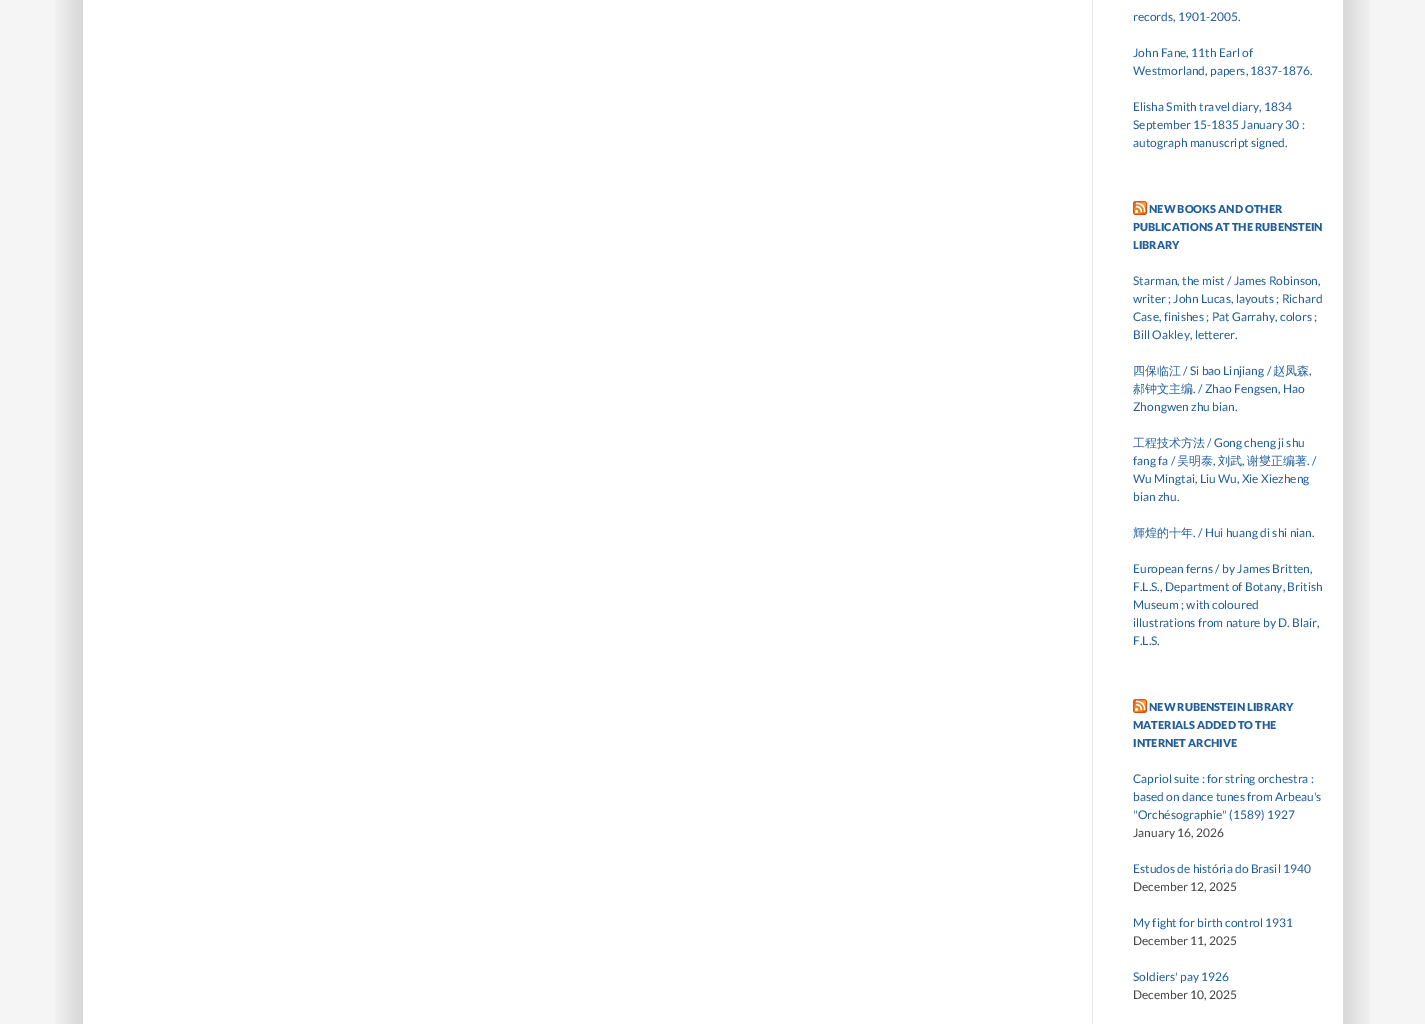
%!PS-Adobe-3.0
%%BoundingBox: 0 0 1425 1024
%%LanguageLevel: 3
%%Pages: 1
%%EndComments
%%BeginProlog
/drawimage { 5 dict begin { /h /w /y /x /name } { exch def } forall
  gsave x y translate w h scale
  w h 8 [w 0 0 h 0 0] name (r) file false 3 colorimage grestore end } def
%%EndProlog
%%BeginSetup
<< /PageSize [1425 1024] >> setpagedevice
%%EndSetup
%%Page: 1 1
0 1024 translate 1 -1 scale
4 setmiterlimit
0.961 setgray
0 0 1425 1024 rectfill
(images/1.raw) 55 0 1315 1024 drawimage
0.902 setgray
1092 0 1 1024 rectfill
(images/2.raw) 1133 201 14 14 drawimage
(images/2.raw) 1133 699 14 14 drawimage
/Lato-Regular [12 0 0 -12 0 0] selectfont
0.133 0.369 0.608 setrgbcolor
1133 21 moveto (records, 1901-2005.) show
1133 57 moveto (John Fane, 11th Earl of) show
1133 75 moveto (Westmorland, papers, 1837-1876.) show
1133 111 moveto (Elisha Smith travel diary, 1834) show
1133 129 moveto (September 15-1835 January 30 :) show
1133 147 moveto (autograph manuscript signed.) show
/Lato-Black [11 0 0 -11 0 0] selectfont
1149 213 moveto (NEW BOOKS AND OTHER) show
1133 231 moveto (PUBLICATIONS AT THE RUBENSTEIN) show
1133 249 moveto (LIBRARY) show
/Lato-Regular [12 0 0 -12 0 0] selectfont
1133 285 moveto (Starman, the mist / James Robinson,) show
1133 303 moveto (writer ; John Lucas, layouts ; Richard) show
1133 321 moveto (Case, finishes ; Pat Garrahy, colors ;) show
1133 339 moveto (Bill Oakley, letterer.) show
/WenQuanYiZenHei-Medium [12 0 0 -12 0 0] selectfont
1133 375 moveto (四保临江) show
/Lato-Regular [12 0 0 -12 0 0] selectfont
1183 375 moveto (/ Si bao Linjiang /) show
/WenQuanYiZenHei-Medium [12 0 0 -12 0 0] selectfont
1273 375 moveto (赵凤森) show
/Lato-Regular [12 0 0 -12 0 0] selectfont
1309 375 moveto (,) show
/WenQuanYiZenHei-Medium [12 0 0 -12 0 0] selectfont
1133 393 moveto (郝钟文主编) show
/Lato-Regular [12 0 0 -12 0 0] selectfont
1193 393 moveto (. / Zhao Fengsen, Hao) show
1133 411 moveto (Zhongwen zhu bian.) show
/WenQuanYiZenHei-Medium [12 0 0 -12 0 0] selectfont
1133 447 moveto (工程技术方法) show
/Lato-Regular [12 0 0 -12 0 0] selectfont
1207 447 moveto (/ Gong cheng ji shu) show
1133 465 moveto (fang fa /) show
/WenQuanYiZenHei-Medium [12 0 0 -12 0 0] selectfont
1177 465 moveto (吴明泰) show
/Lato-Regular [12 0 0 -12 0 0] selectfont
1213 465 moveto (,) show
/WenQuanYiZenHei-Medium [12 0 0 -12 0 0] selectfont
1218 465 moveto (刘武) show
/Lato-Regular [12 0 0 -12 0 0] selectfont
1242 465 moveto (,) show
/WenQuanYiZenHei-Medium [12 0 0 -12 0 0] selectfont
1247 465 moveto (谢燮正编著) show
/Lato-Regular [12 0 0 -12 0 0] selectfont
1307 465 moveto (. /) show
1133 483 moveto (Wu Mingtai, Liu Wu, Xie Xiezheng) show
1133 501 moveto (bian zhu.) show
/WenQuanYiZenHei-Medium [12 0 0 -12 0 0] selectfont
1133 537 moveto (輝煌的十年) show
/Lato-Regular [12 0 0 -12 0 0] selectfont
1193 537 moveto (. / Hui huang di shi nian.) show
1133 573 moveto (European ferns / by James Britten,) show
1133 591 moveto (F.L.S., Department of Botany, British) show
1133 609 moveto (Museum ; with coloured) show
1133 627 moveto (illustrations from nature by D. Blair,) show
1133 645 moveto (F.L.S.) show
/Lato-Black [11 0 0 -11 0 0] selectfont
1149 711 moveto (NEW RUBENSTEIN LIBRARY) show
1133 729 moveto (MATERIALS ADDED TO THE) show
1133 747 moveto (INTERNET ARCHIVE) show
/Lato-Regular [12 0 0 -12 0 0] selectfont
1133 783 moveto (Capriol suite : for string orchestra :) show
1133 801 moveto (based on dance tunes from Arbeau's) show
1133 819 moveto ("Orchésographie" \(1589\) 1927) show
0.267 setgray
1133 837 moveto (January 16, 2026) show
0.133 0.369 0.608 setrgbcolor
1133 873 moveto (Estudos de história do Brasil 1940) show
0.267 setgray
1133 891 moveto (December 12, 2025) show
0.133 0.369 0.608 setrgbcolor
1133 927 moveto (My fight for birth control 1931) show
0.267 setgray
1133 945 moveto (December 11, 2025) show
0.133 0.369 0.608 setrgbcolor
1133 981 moveto (Soldiers' pay 1926) show
0.267 setgray
1133 999 moveto (December 10, 2025) show
showpage
%%EOF
